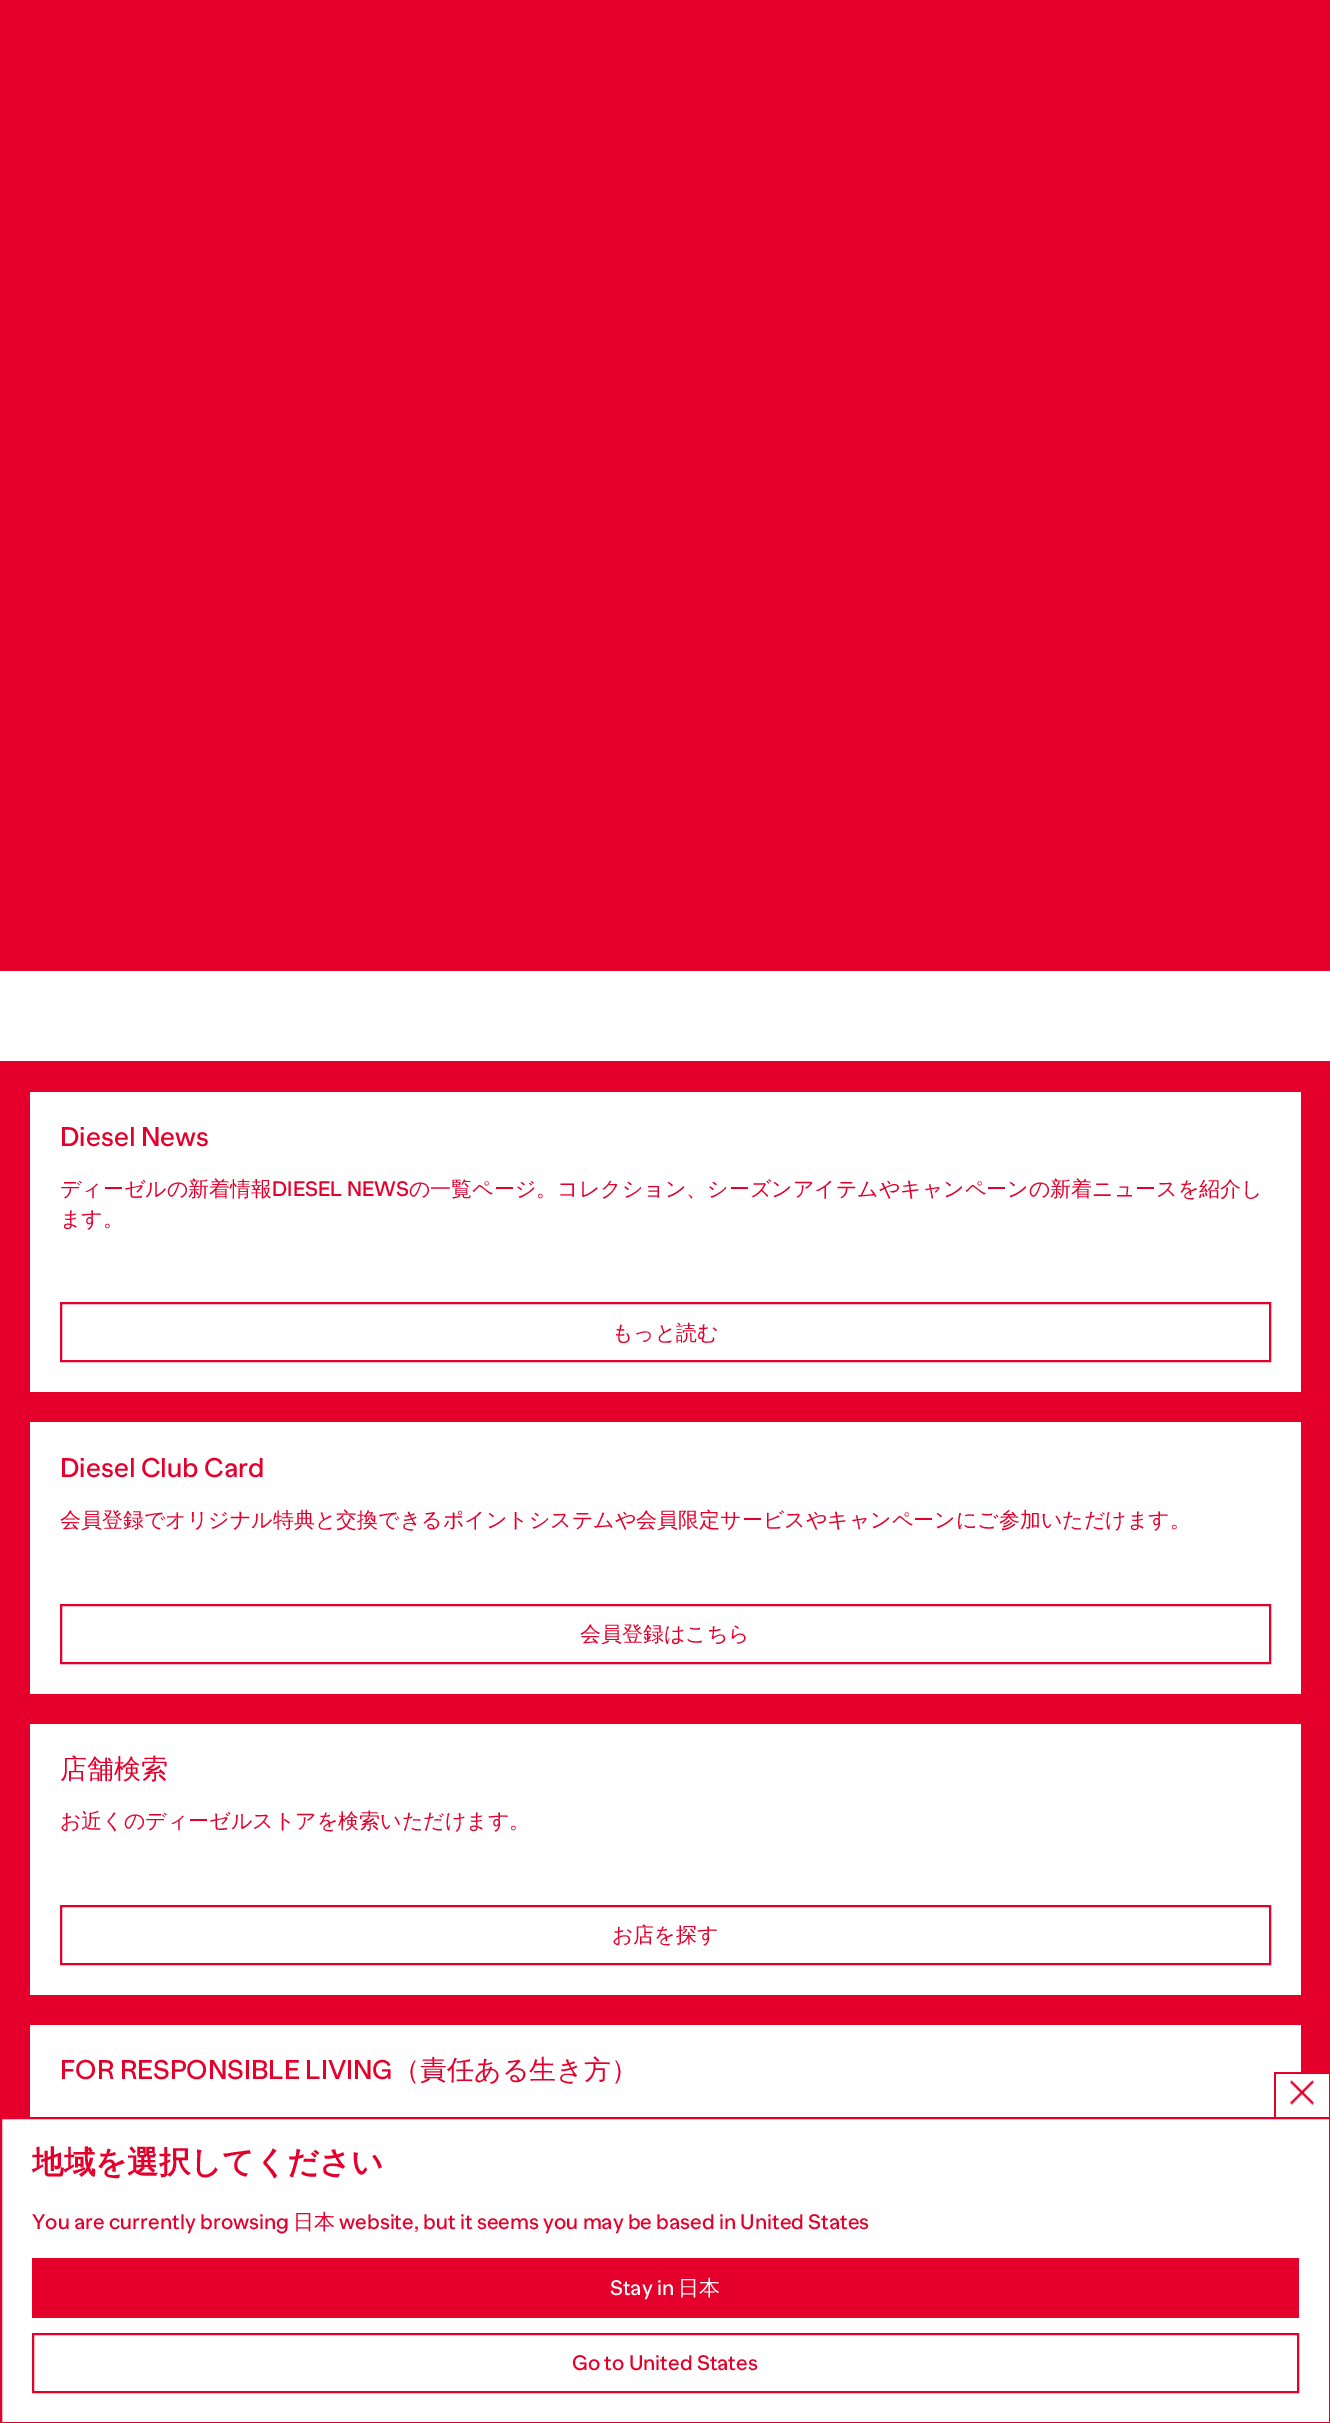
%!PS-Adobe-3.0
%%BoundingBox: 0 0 1330 2423
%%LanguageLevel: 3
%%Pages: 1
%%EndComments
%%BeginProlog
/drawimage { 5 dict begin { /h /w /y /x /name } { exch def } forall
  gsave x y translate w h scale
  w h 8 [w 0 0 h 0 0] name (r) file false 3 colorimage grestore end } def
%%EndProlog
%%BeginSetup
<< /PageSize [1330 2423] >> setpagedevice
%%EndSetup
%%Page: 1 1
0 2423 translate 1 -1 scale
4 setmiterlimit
1 setgray
0 0 1330 2423 rectfill
0.894 0 0.169 setrgbcolor
0 0 1330 971 rectfill
0 1061 1330 1056 rectfill
1 setgray
30 1092 1271 300 rectfill
0.894 0 0.169 setrgbcolor
2 setlinewidth
61 1303 1209 58 rectstroke
1 setgray
30 1422 1271 272 rectfill
0.894 0 0.169 setrgbcolor
61 1605 1209 58 rectstroke
1 setgray
30 1724 1271 271 rectfill
0.894 0 0.169 setrgbcolor
61 1906 1209 58 rectstroke
1 setgray
30 2025 1271 92 rectfill
1301 2074 28 43 rectfill
0.894 0 0.169 setrgbcolor
1274 2072 27 2 rectfill
1274 2072 2 45 rectfill
(images/1.raw) 1290 2080 24 25 drawimage
1 2118 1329 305 rectstroke
32 2258 1267 60 rectfill
33 2334 1265 58 rectstroke
/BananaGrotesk-Medium [27 0 0 -27 0 0] selectfont
60 1146 moveto (Diesel News) show
/WenQuanYiZenHei-Medium [21 0 0 -21 0 0] selectfont
60 1196 moveto (ディーゼルの新着情報) show
/BananaGrotesk-Medium [21 0 0 -21 0 0] selectfont
272 1196 moveto (DIESEL NEWS) show
/WenQuanYiZenHei-Medium [21 0 0 -21 0 0] selectfont
409 1196 moveto (の一覧ページ。コレクション、シーズンアイテムやキャンペーンの新着ニュースを紹介し) show
60 1226 moveto (ます。) show
612 1340 moveto (もっと読む) show
/BananaGrotesk-Medium [27 0 0 -27 0 0] selectfont
60 1477 moveto (Diesel Club Card) show
/WenQuanYiZenHei-Medium [21 0 0 -21 0 0] selectfont
60 1527 moveto (会員登録でオリジナル特典と交換できるポイントシステムや会員限定サービスやキャンペーンにご参加いただけます。) show
580 1641 moveto (会員登録はこちら) show
/WenQuanYiZenHei-Medium [27 0 0 -27 0 0] selectfont
60 1778 moveto (店舗検索) show
/WenQuanYiZenHei-Medium [21 0 0 -21 0 0] selectfont
60 1828 moveto (お近くのディーゼルストアを検索いただけます。) show
612 1942 moveto (お店を探す) show
/BananaGrotesk-Medium [27 0 0 -27 0 0] selectfont
60 2079 moveto (FOR RESPONSIBLE LIVING) show
/WenQuanYiZenHei-Medium [27 0 0 -27 0 0] selectfont
393 2079 moveto (（責任ある生き方）) show
/WenQuanYiZenHei-Bold [31.5 0 0 -31.5 0 0] selectfont
32 2173 moveto (地域を選択してください) show
/BananaGrotesk-Medium [21 0 0 -21 0 0] selectfont
32 2229 moveto (You are currently browsing) show
/WenQuanYiZenHei-Medium [21 0 0 -21 0 0] selectfont
293 2229 moveto (日本) show
/BananaGrotesk-Medium [21 0 0 -21 0 0] selectfont
339 2229 moveto (website, but it seems you may be based in United States) show
1 setgray
610 2295 moveto (Stay in) show
/WenQuanYiZenHei-Medium [21 0 0 -21 0 0] selectfont
678 2295 moveto (日本) show
/BananaGrotesk-Medium [21 0 0 -21 0 0] selectfont
0.894 0 0.169 setrgbcolor
572 2370 moveto (Go to United States) show
showpage
%%EOF
